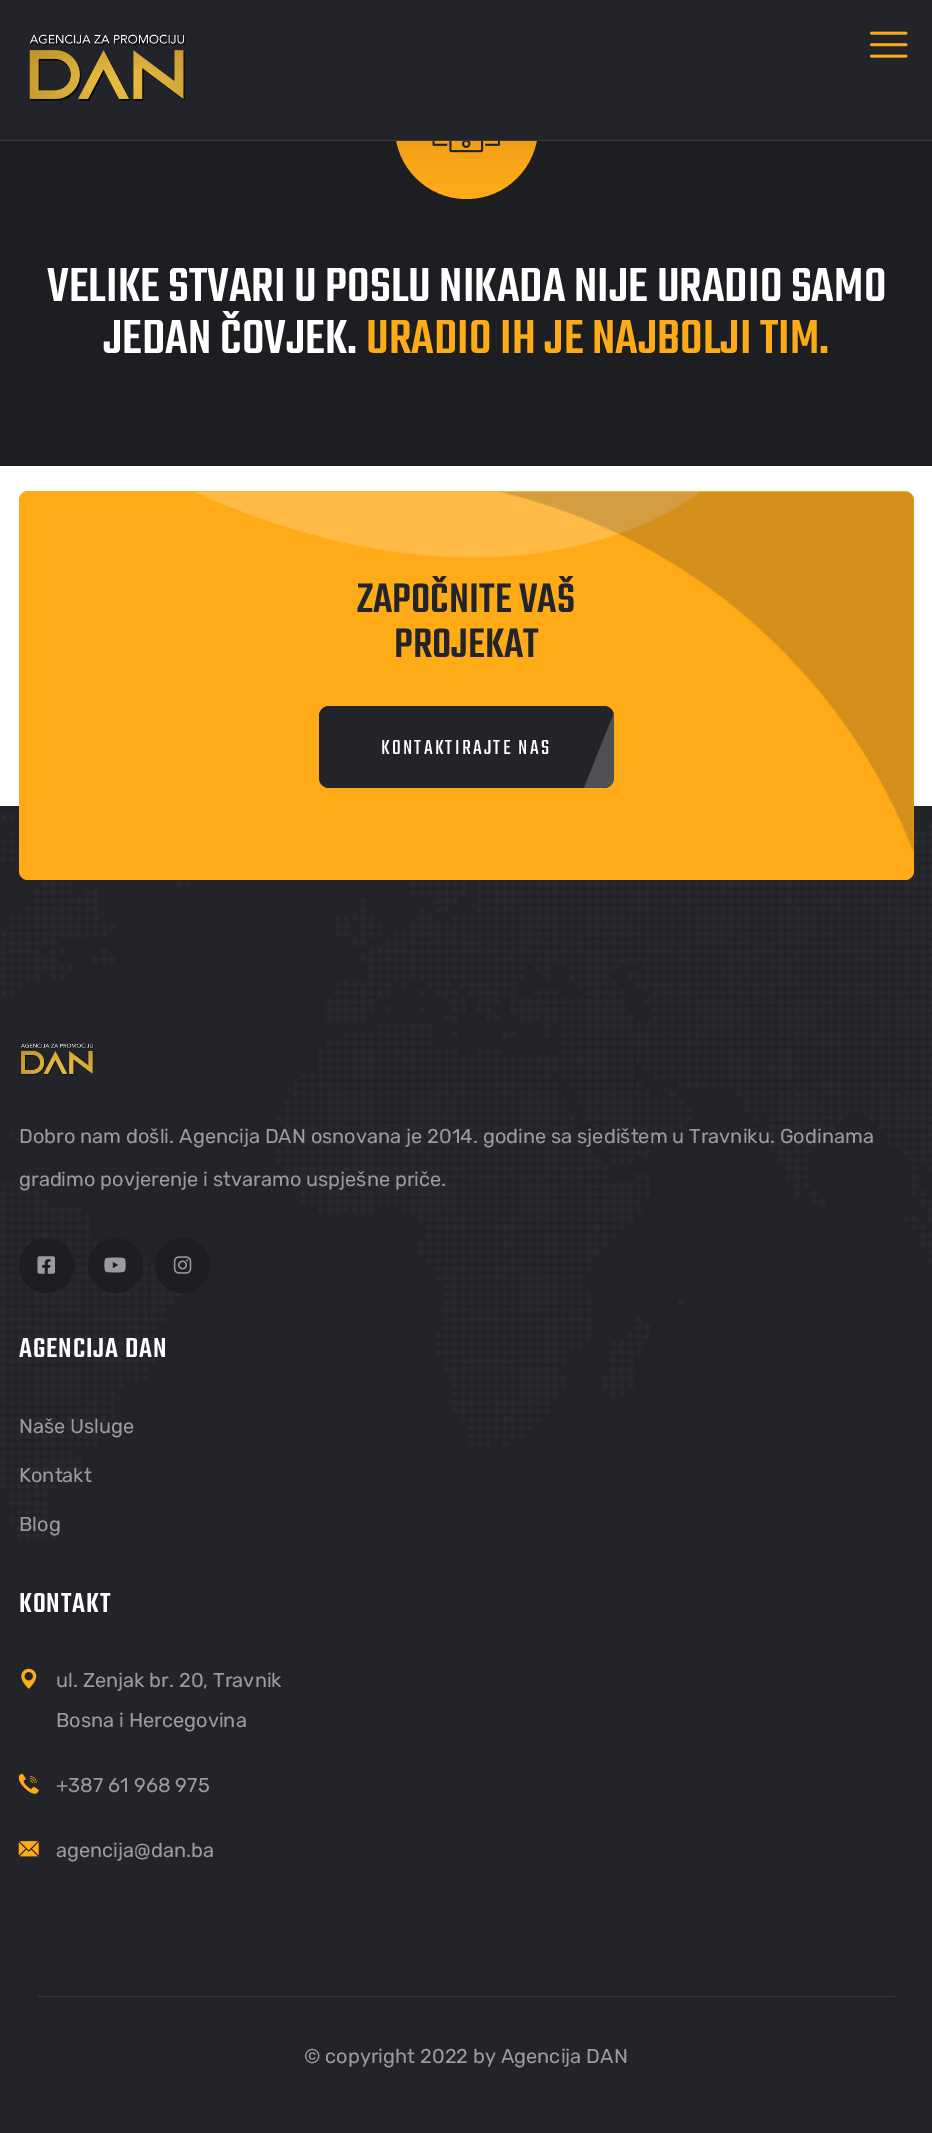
%!PS-Adobe-3.0
%%BoundingBox: 0 0 932 2133
%%LanguageLevel: 3
%%Pages: 1
%%EndComments
%%BeginProlog
/setalpha { dup .setfillconstantalpha .setstrokeconstantalpha } def
/rrect { 5 dict begin { /r /h /w /y /x } { exch def } forall
  x r add y moveto x w add y 2 copy h add r arct x w add y h add x 1 index r arct
  x y h add x y r arct x y 2 copy exch w add exch r arct closepath end } def
/softshadow { 12 dict begin { /a /b /q /h /w /y /x } { exch def } forall gsave /was 0 def
  9 -2 -9 { dup b mul 4 div /e exch def 1 sub .425 mul 2.718 exch exp 1 add a .99 .min exch div /now exch def
    1 1 now sub 1 was sub div sub setalpha /was now def
    w h .min e 2 mul add 0 gt { x e sub y e sub w e 2 mul add h e 2 mul add
      q e add b .6 mul add w h .min 2 div e add .min 0 .max rrect fill } if } for grestore end } def
/drawimage { 5 dict begin { /h /w /y /x /name } { exch def } forall
  gsave x y translate w h scale
  w h 8 [w 0 0 h 0 0] name (r) file false 3 colorimage grestore end } def
%%EndProlog
%%BeginSetup
<< /PageSize [932 2133] /PageUsesTransparency true >> setpagedevice
%%EndSetup
%%Page: 1 1
0 .pushpdf14devicefilter
0 2133 translate 1 -1 scale
4 setmiterlimit
1 setgray
0 0 932 2133 rectfill
0.11 0.118 0.133 setrgbcolor
0 141 932 325 rectfill
1 0.667 0.09 setrgbcolor
newpath 466.5 127.5 71.5 0 360 arc closepath fill
(images/3.raw) 432 141 68 12 drawimage
0 setgray
0 13 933 141 0 19 0.08 softshadow
0.133 0.141 0.161 setrgbcolor
0 0 932 140 rectfill
0.22 0.227 0.243 setrgbcolor
0 140 932 1 rectfill
(images/1.raw) 29 34 157 67 drawimage
(images/2.raw) 870 31 38 27 drawimage
0.133 0.141 0.161 setrgbcolor
0 806 932 1327 rectfill
(images/6.raw) 1 814 931 725 drawimage
1 0.667 0.09 setrgbcolor
19 491 895 389 9 rrect fill
(images/4.raw) 194 491 507 67 drawimage
(images/5.raw) 499 492 415 360 drawimage
0.133 0.141 0.161 setrgbcolor
319 706 295 82 10 rrect fill
0.2 setalpha
1 setgray
newpath 584 788 moveto 597 788 lineto 604 788 612 788 614 780 curveto 614 726 lineto 614 713 lineto closepath fill
1 setalpha
(images/7.raw) 21 1043 73 32 drawimage
0.11 0.118 0.133 setrgbcolor
newpath 46.5 1265.5 27.5 0 360 arc closepath fill
(images/8.raw) 37 1256 18 18 drawimage
newpath 115.5 1265.5 27.5 0 360 arc closepath fill
(images/9.raw) 104 1257 22 16 drawimage
newpath 182.5 1265.5 27.5 0 360 arc closepath fill
(images/10.raw) 173 1256 19 18 drawimage
(images/11.raw) 21 1668 16 21 drawimage
(images/12.raw) 18 1773 21 21 drawimage
(images/13.raw) 18 1841 21 16 drawimage
0.22 0.227 0.243 setrgbcolor
38 1996 857 1 rectfill
/Teko-Medium [52.5 0 0 -52.5 0 0] selectfont
1 setgray
47 301 moveto (VELIKE STVARI U POSLU NIKADA NIJE URADIO SAMO) show
103 353 moveto (JEDAN ČOVJEK.) show
1 0.667 0.09 setrgbcolor
366 353 moveto (URADIO IH JE NAJBOLJI TIM.) show
/Teko-Medium [45 0 0 -45 0 0] selectfont
0.133 0.141 0.161 setrgbcolor
357 612 moveto (ZAPOČNITE VAŠ) show
394 657 moveto (PROJEKAT) show
/Teko-Regular [22.5 0 0 -22.5 0 0] selectfont
1 setgray
381 754 moveto 2.25 0 (KONTAKTIRAJTE NAS) ashow
/Rubik-Regular [20 0 0 -20 0 0] selectfont
0.6 0.608 0.624 setrgbcolor
19 1143 moveto (Dobro nam došli. Agencija DAN osnovana je 2014. godine sa sjedištem u Travniku. Godinama) show
19 1186 moveto (gradimo povjerenje i stvaramo uspješne priče.) show
/Teko-Medium [30 0 0 -30 0 0] selectfont
1 setgray
19 1357 moveto 0.9 0 (AGENCIJA DAN) ashow
/Rubik-Regular [20 0 0 -20 0 0] selectfont
0.6 0.608 0.624 setrgbcolor
19 1433 moveto (Naše Usluge) show
19 1482 moveto (Kontakt) show
19 1531 moveto (Blog) show
/Teko-Medium [30 0 0 -30 0 0] selectfont
1 setgray
19 1612 moveto 0.9 0 (KONTAKT) ashow
/Rubik-Regular [20 0 0 -20 0 0] selectfont
0.6 0.608 0.624 setrgbcolor
56 1687 moveto (ul. Zenjak br. 20, Travnik) show
56 1727 moveto (Bosna i Hercegovina) show
56 1792 moveto (+387 61 968 975) show
56 1857 moveto (agencija@dan.ba) show
304 2063 moveto (© copyright 2022 by Agencija DAN) show
.poppdf14devicefilter showpage
%%EOF
